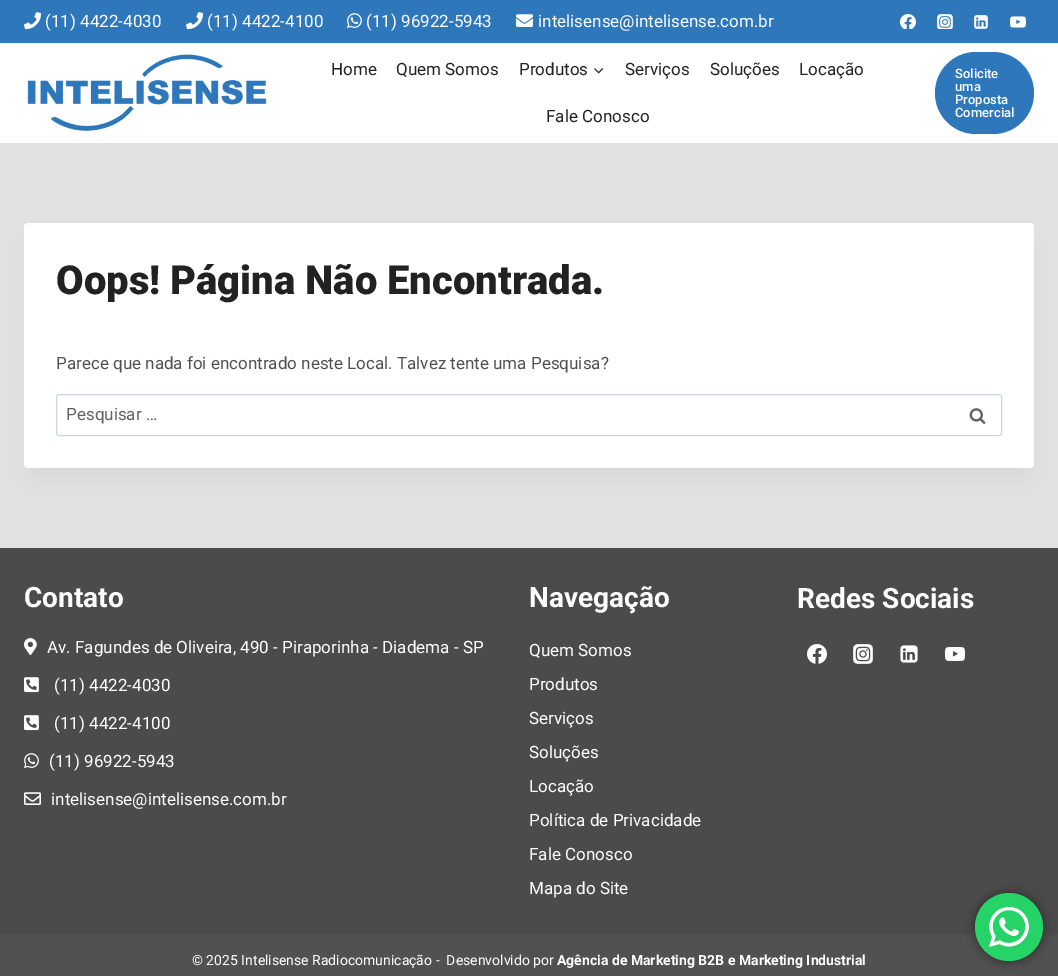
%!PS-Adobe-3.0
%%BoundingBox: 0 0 1058 976
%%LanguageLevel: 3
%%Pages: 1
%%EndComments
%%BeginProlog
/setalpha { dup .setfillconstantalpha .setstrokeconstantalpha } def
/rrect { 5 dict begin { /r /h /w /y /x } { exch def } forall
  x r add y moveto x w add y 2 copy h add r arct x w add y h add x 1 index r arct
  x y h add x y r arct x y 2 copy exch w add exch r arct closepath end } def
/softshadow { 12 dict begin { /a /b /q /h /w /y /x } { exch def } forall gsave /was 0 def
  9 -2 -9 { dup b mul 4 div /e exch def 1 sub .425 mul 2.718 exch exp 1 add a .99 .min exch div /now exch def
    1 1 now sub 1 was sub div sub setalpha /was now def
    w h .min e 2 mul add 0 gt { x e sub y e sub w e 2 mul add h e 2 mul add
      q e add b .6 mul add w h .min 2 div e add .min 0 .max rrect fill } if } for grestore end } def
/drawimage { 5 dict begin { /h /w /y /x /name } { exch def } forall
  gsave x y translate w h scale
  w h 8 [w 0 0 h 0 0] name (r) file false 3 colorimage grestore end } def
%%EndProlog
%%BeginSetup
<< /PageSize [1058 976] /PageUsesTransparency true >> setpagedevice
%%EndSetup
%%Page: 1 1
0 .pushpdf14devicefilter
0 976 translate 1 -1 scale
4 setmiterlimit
0.882 setgray
0 0 1058 976 rectfill
1 setgray
0 43 1058 100 rectfill
0.18 0.467 0.733 setrgbcolor
0 0 1058 43 rectfill
(images/1.raw) 24 12 17 18 drawimage
(images/1.raw) 186 12 17 18 drawimage
(images/2.raw) 347 13 15 15 drawimage
(images/3.raw) 516 14 17 13 drawimage
(images/4.raw) 900 14 16 15 drawimage
(images/5.raw) 937 14 16 15 drawimage
(images/6.raw) 974 15 14 14 drawimage
(images/7.raw) 1010 16 16 12 drawimage
(images/8.raw) 27 54 240 77 drawimage
(images/9.raw) 594 68 10 6 drawimage
935 52 99 82 41 rrect fill
0 setgray
34 248 990 225 0 12.5 0.05 softshadow
1 setgray
24 223 1010 245 4 rrect fill
0.796 0.835 0.878 setrgbcolor
56.5 394.5 945 41 2.5 rrect stroke
(images/10.raw) 969 408 17 16 drawimage
0.294 setgray
0 548 1058 387 rectfill
(images/11.raw) 24 638 13 18 drawimage
(images/12.raw) 24 677 15 16 drawimage
(images/12.raw) 24 715 15 16 drawimage
(images/13.raw) 24 753 15 15 drawimage
(images/14.raw) 24 792 17 13 drawimage
(images/15.raw) 807 644 20 20 drawimage
(images/16.raw) 853 644 20 20 drawimage
(images/17.raw) 900 645 18 18 drawimage
(images/18.raw) 945 647 20 14 drawimage
0.318 setgray
0 935 1058 41 rectfill
0 setgray
975 893 68 68 34 5.5 0.5 softshadow
0.145 0.827 0.4 setrgbcolor
newpath 1009 927 34 0 360 arc closepath fill
(images/19.raw) 989 907 40 40 drawimage
/Roboto-Regular [17 0 0 -17 0 0] selectfont
1 setgray
45 27 moveto (\(11\) 4422-4030) show
207 27 moveto (\(11\) 4422-4100) show
366 27 moveto (\(11\) 96922-5943) show
538 27 moveto (intelisense@intelisense.com.br) show
0.133 setgray
331 75 moveto (Home) show
396 75 moveto (Quem Somos) show
519 75 moveto (Produtos) show
625 75 moveto (Serviços) show
710 75 moveto (Soluções) show
799 75 moveto (Locação) show
546 122 moveto (Fale Conosco) show
/Roboto-Medium [13 0 0 -13 0 0] selectfont
1 setgray
955 78 moveto (Solicite) show
955 91 moveto (uma) show
955 104 moveto (Proposta) show
955 117 moveto (Comercial) show
/Roboto-Black [40 0 0 -40 0 0] selectfont
0.133 setgray
56 294 moveto (Oops! Página Não Encontrada.) show
/Roboto-Regular [17 0 0 -17 0 0] selectfont
0.318 setgray
56 369 moveto (Parece que nada foi encontrado neste Local. Talvez tente uma Pesquisa?) show
0.384 setgray
66 420 moveto (Pesquisar …) show
/Roboto-Bold [28 0 0 -28 0 0] selectfont
1 setgray
24 607 moveto (Contato) show
/Roboto-Regular [17 0 0 -17 0 0] selectfont
47 653 moveto (Av. Fagundes de Oliveira, 490 - Piraporinha - Diadema - SP) show
54 691 moveto (\(11\) 4422-4030) show
54 729 moveto (\(11\) 4422-4100) show
49 767 moveto (\(11\) 96922-5943) show
51 805 moveto (intelisense@intelisense.com.br) show
/Roboto-Bold [28 0 0 -28 0 0] selectfont
529 607 moveto (Navegação) show
/Roboto-Regular [17 0 0 -17 0 0] selectfont
529 656 moveto (Quem Somos) show
529 690 moveto (Produtos) show
529 724 moveto (Serviços) show
529 758 moveto (Soluções) show
529 792 moveto (Locação) show
529 826 moveto (Política de Privacidade) show
529 860 moveto (Fale Conosco) show
529 894 moveto (Mapa do Site) show
/Roboto-Bold [28 0 0 -28 0 0] selectfont
797 608 moveto (Redes Sociais) show
/Roboto-Regular [14 0 0 -14 0 0] selectfont
192 965 moveto (© 2025 Intelisense Radiocomunicação -  Desenvolvido por) show
/Roboto-Bold [14 0 0 -14 0 0] selectfont
557 965 moveto (Agência de Marketing B2B e Marketing Industrial) show
.poppdf14devicefilter showpage
%%EOF
